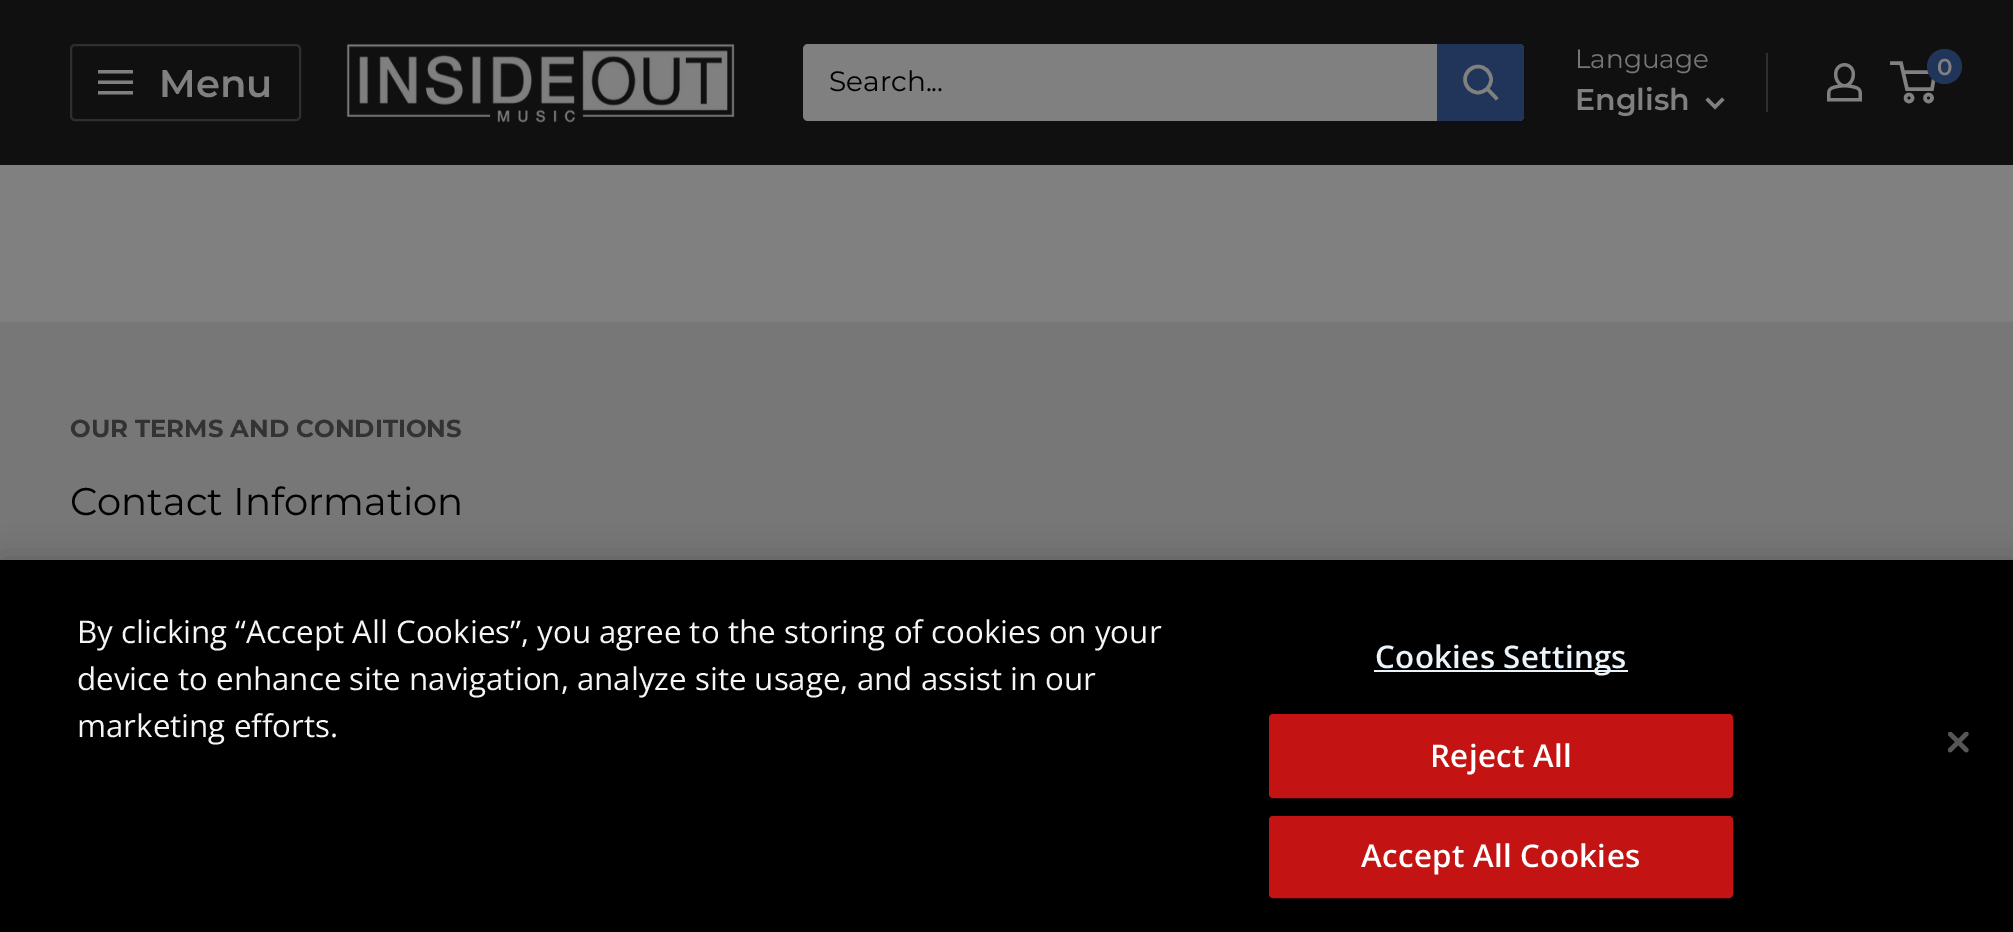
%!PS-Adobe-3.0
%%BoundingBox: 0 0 2013 932
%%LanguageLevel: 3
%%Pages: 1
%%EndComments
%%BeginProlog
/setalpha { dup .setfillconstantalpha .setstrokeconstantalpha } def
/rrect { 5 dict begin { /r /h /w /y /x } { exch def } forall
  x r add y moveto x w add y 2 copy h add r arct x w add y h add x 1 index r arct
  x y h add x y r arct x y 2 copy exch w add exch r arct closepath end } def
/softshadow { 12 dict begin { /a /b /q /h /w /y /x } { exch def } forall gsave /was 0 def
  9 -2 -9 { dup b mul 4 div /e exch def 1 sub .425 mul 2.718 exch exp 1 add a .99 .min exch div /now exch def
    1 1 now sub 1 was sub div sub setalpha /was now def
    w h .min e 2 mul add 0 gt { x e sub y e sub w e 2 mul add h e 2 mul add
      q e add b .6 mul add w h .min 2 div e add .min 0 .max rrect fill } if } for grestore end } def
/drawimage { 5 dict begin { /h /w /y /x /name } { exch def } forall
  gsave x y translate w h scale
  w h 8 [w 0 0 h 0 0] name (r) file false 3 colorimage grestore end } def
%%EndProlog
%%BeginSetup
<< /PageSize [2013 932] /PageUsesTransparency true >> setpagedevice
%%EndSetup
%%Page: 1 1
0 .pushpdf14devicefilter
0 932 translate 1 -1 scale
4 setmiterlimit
0.502 setgray
0 0 2013 932 rectfill
0.067 0.063 0.067 setrgbcolor
0 0 2013 165 rectfill
0.188 0.184 0.188 setrgbcolor
2 setlinewidth
71 45 229 75 4 rrect stroke
0.502 setgray
newpath 98 91 moveto 133 91 lineto 133 94.5 lineto 98 94.5 lineto closepath 98 70 moveto 133 70 lineto 133 73.5 lineto 98 73.5 lineto closepath 98 80.5 moveto 133 80.5 lineto 133 84 lineto 98 84 lineto closepath eofill
(images/1.raw) 346 43 389 80 drawimage
803 44 721 77 5 rrect fill
0.125 0.208 0.349 setrgbcolor
newpath 1437 44 moveto 1519 44 lineto 1522 44 1524 46 1524 49 curveto 1524 116 lineto 1524 119 1522 121 1519 121 curveto 1437 121 lineto closepath fill
0.502 setgray
3.5 setlinewidth
2 setlinecap
newpath 1496 98 moveto 1487.5 89 lineto stroke
0 setlinecap
newpath 1478 79.5 13 0 360 arc closepath stroke
2 setlinecap
newpath 1722 100 moveto 1715 107 lineto 1708 100 lineto stroke
0.188 0.184 0.188 setrgbcolor
1766 53 2 59 rectfill
(images/2.raw) 1827 63 35 39 drawimage
0.502 setgray
0 setlinecap
newpath 1909 98 3.5 0 360 arc closepath stroke
newpath 1928.5 98 3.5 0 360 arc closepath stroke
newpath 1903 72 moveto 1935 72 lineto 1932 89 lineto 1907 89 lineto 1901 63 lineto 1890 63 lineto stroke
0.125 0.208 0.349 setrgbcolor
newpath 1944.5 66.5 17.5 0 360 arc closepath fill
0.467 setgray
0 322 2013 238 rectfill
0 setgray
0 560 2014 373 0 16 0.2 softshadow
0 560 2013 372 rectfill
0.922 0.953 0.98 setrgbcolor
1374 670 254 2 rectfill
0.765 0.075 0.075 setrgbcolor
1270 715 462 82 3 rrect gsave fill grestore
2 setlinewidth
stroke
1270 817 462 80 3 rrect gsave fill grestore
stroke
(images/3.raw) 1948 732 21 21 drawimage
/Montserrat-SemiBold [38.5 0 0 -38.5 0 0] selectfont
0.502 setgray
159 97 moveto (Menu) show
/Montserrat-Regular [28 0 0 -28 0 0] selectfont
0 setgray
829 91 moveto (Search...) show
/Montserrat-Regular [26.25 0 0 -26.25 0 0] selectfont
0.467 setgray
1575 68 moveto (Language) show
/Montserrat-SemiBold [30 0 0 -30 0 0] selectfont
0.502 setgray
1575 110 moveto (English) show
/Montserrat-SemiBold [23 0 0 -23 0 0] selectfont
1937 75 moveto (0) show
/Montserrat-Bold [24.5 0 0 -24.5 0 0] selectfont
0.2 setgray
70 437 moveto (OUR TERMS AND CONDITIONS) show
/Montserrat-Regular [38.5 0 0 -38.5 0 0] selectfont
0 setgray
70 515 moveto (Contact Information) show
/OpenSans-Regular [31.3 0 0 -31.3 0 0] selectfont
0.961 setgray
77 643 moveto (By clicking “Accept All Cookies”, you agree to the storing of cookies on your) show
77 690 moveto (device to enhance site navigation, analyze site usage, and assist in our) show
77 737 moveto (marketing efforts.) show
/OpenSans-SemiBold [31.3 0 0 -31.3 0 0] selectfont
0.922 0.953 0.98 setrgbcolor
1375 668 moveto 0.3 0 (Cookies Settings) ashow
1 setgray
1430 767 moveto 0.3 0 (Reject All) ashow
1361 867 moveto 0.3 0 (Accept All Cookies) ashow
.poppdf14devicefilter showpage
%%EOF
